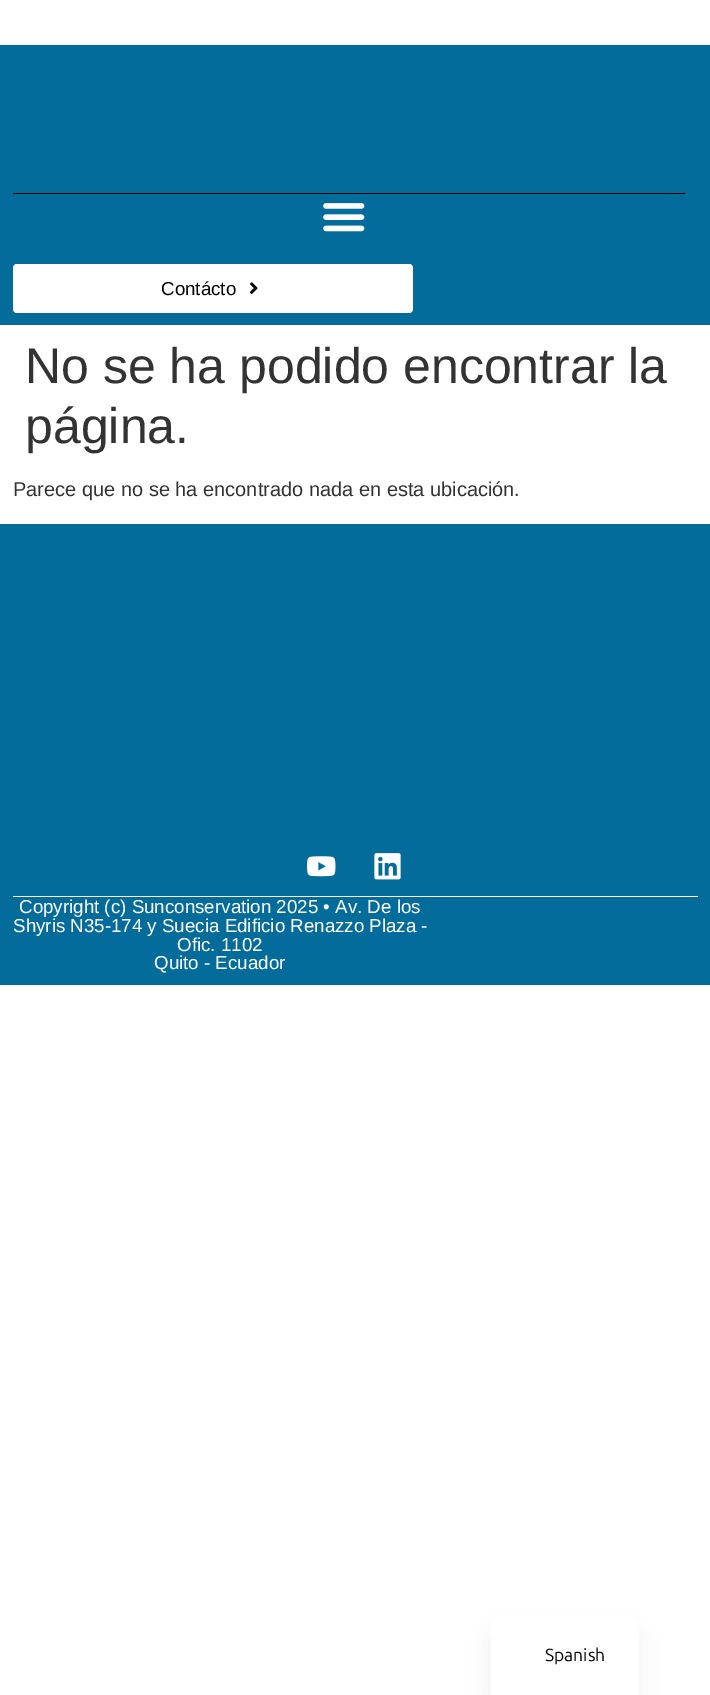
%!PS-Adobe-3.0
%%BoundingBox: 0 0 710 1695
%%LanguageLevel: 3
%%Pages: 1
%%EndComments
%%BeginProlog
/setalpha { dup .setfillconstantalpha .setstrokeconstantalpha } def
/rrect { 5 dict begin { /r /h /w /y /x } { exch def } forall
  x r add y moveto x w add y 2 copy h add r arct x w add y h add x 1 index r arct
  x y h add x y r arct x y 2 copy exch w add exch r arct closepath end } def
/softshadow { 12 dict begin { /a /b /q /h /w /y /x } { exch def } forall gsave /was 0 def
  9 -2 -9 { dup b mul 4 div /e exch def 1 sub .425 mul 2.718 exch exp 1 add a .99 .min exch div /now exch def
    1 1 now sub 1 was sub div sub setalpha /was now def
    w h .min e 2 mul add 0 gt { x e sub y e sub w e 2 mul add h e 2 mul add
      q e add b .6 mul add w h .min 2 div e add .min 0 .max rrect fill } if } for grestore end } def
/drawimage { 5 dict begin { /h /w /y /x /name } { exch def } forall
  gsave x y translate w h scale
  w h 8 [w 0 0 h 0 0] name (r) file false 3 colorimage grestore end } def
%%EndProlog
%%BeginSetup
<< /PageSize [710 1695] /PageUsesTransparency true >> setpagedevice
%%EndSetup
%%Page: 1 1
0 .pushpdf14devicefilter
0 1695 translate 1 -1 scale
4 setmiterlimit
1 setgray
0 0 710 1695 rectfill
0.016 0.424 0.608 setrgbcolor
0 45 710 280 rectfill
0 setgray
13 193 672 1 rectfill
(images/1.raw) 323 203 42 29 drawimage
1 setgray
13 264 400 49 4 rrect fill
(images/2.raw) 250 282 8 12 drawimage
0.016 0.424 0.608 setrgbcolor
0 524 710 461 rectfill
(images/3.raw) 307 856 29 21 drawimage
(images/4.raw) 374 853 27 27 drawimage
1 setgray
13 896 685 1 rectfill
0 setgray
491 1629 148 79 10 12.5 0.05 softshadow
1 setgray
newpath 501 1616 moveto 629 1616 lineto 634.5 1616 639 1620.5 639 1626 curveto 639 1695 lineto 491 1695 lineto 491 1626 lineto 491 1620.5 495.5 1616 501 1616 curveto closepath fill
/LiberationSans-Regular [18.75 0 0 -18.75 0 0] selectfont
0.012 setgray
161 295 moveto (Contácto) show
/LiberationSans-Regular [50 0 0 -50 0 0] selectfont
0.2 setgray
25 383 moveto (No se ha podido encontrar la) show
25 443 moveto (página.) show
/LiberationSans-Regular [20 0 0 -20 0 0] selectfont
13 496 moveto (Parece que no se ha encontrado nada en esta ubicación.) show
/LiberationSans-Regular [18.75 0 0 -18.75 0 0] selectfont
1 setgray
19 913 moveto (Copyright \(c\) Sunconservation 2025 • Av. De los) show
13 932 moveto (Shyris N35-174 y Suecia Edificio Renazzo Plaza -) show
177 951 moveto (Ofic. 1102) show
154 969 moveto (Quito - Ecuador) show
/Ubuntu-Regular [17.5 0 0 -17.5 0 0] selectfont
0.012 setgray
545 1661 moveto (Spanish) show
.poppdf14devicefilter showpage
%%EOF
